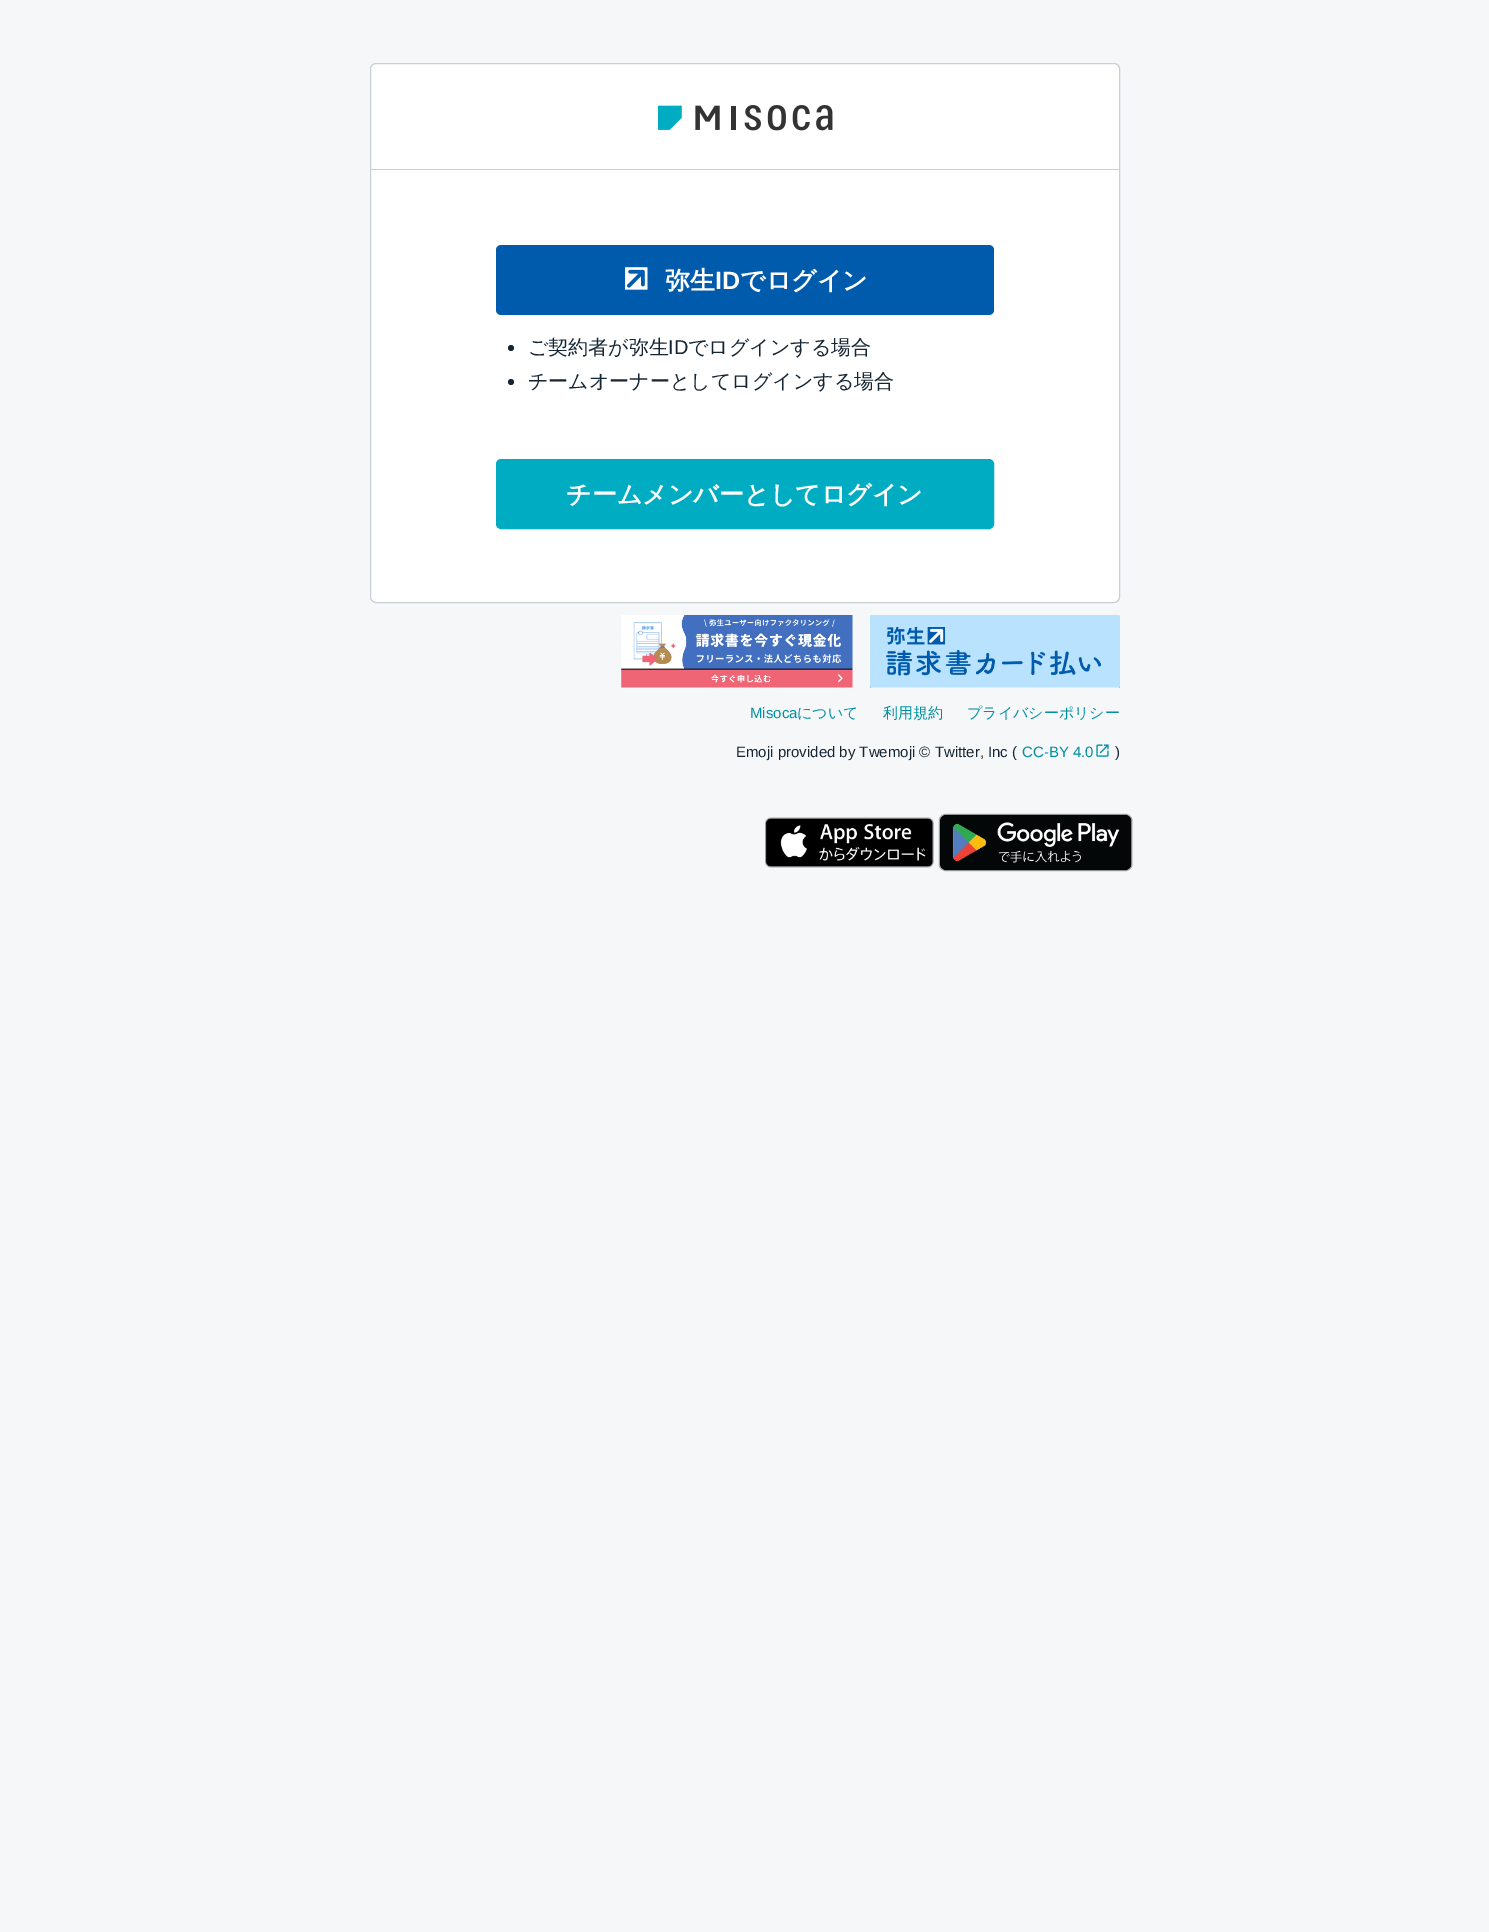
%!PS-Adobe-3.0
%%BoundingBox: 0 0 1489 1932
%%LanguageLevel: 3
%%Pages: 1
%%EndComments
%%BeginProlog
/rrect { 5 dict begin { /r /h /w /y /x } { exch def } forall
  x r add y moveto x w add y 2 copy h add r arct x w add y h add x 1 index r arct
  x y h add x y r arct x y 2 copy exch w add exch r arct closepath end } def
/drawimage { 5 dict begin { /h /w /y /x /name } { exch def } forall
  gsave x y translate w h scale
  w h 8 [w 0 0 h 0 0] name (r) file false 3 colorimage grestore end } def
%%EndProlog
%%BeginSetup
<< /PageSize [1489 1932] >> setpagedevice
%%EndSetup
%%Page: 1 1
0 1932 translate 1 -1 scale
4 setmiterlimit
0.961 0.969 0.976 setrgbcolor
0 0 1489 1932 rectfill
1 setgray
370.5 63.5 749 539 5.5 rrect gsave fill grestore
0.784 0.812 0.843 setrgbcolor
stroke
371 169 748 1 rectfill
(images/1.raw) 658 105 175 26 drawimage
0 0.357 0.675 setrgbcolor
496 245 498 70 5 rrect fill
(images/2.raw) 625 267 23 23 drawimage
0.086 0.145 0.2 setrgbcolor
newpath 511 348 3 0 360 arc closepath fill
newpath 511 382 3 0 360 arc closepath fill
0 0.675 0.757 setrgbcolor
496.5 459.5 497 69 4.5 rrect gsave fill grestore
stroke
(images/3.raw) 621 615 232 73 drawimage
(images/4.raw) 870 615 250 73 drawimage
(images/5.raw) 1096 744 13 13 drawimage
(images/6.raw) 765 817 169 51 drawimage
(images/7.raw) 938 813 195 59 drawimage
/WenQuanYiZenHei-Bold [25 0 0 -25 0 0] selectfont
1 setgray
665 289 moveto (弥生) show
/LiberationSans-Bold [25 0 0 -25 0 0] selectfont
715 289 moveto (ID) show
/WenQuanYiZenHei-Bold [25 0 0 -25 0 0] selectfont
740 289 moveto (でログイン) show
/WenQuanYiZenHei-Medium [20 0 0 -20 0 0] selectfont
0.086 0.145 0.2 setrgbcolor
528 354 moveto (ご契約者が弥生) show
/LiberationSans-Regular [20 0 0 -20 0 0] selectfont
668 354 moveto (ID) show
/WenQuanYiZenHei-Medium [20 0 0 -20 0 0] selectfont
688 354 moveto (でログインする場合) show
528 388 moveto (チームオーナーとしてログインする場合) show
/WenQuanYiZenHei-Bold [25 0 0 -25 0 0] selectfont
1 setgray
566 503 moveto (チームメンバーとしてログイン) show
/LiberationSans-Regular [15 0 0 -15 0 0] selectfont
0.004 0.565 0.635 setrgbcolor
750 718 moveto (Misoca) show
/WenQuanYiZenHei-Medium [15 0 0 -15 0 0] selectfont
797 718 moveto (について) show
883 718 moveto (利用規約) show
967 718 moveto (プライバシーポリシー) show
/LiberationSans-Regular [15 0 0 -15 0 0] selectfont
0.086 0.145 0.2 setrgbcolor
736 757 moveto (Emoji provided by Twemoji © Twitter, Inc \() show
0.004 0.565 0.635 setrgbcolor
1022 757 moveto (CC-BY 4.0) show
0.086 0.145 0.2 setrgbcolor
1115 757 moveto (\)) show
showpage
%%EOF
